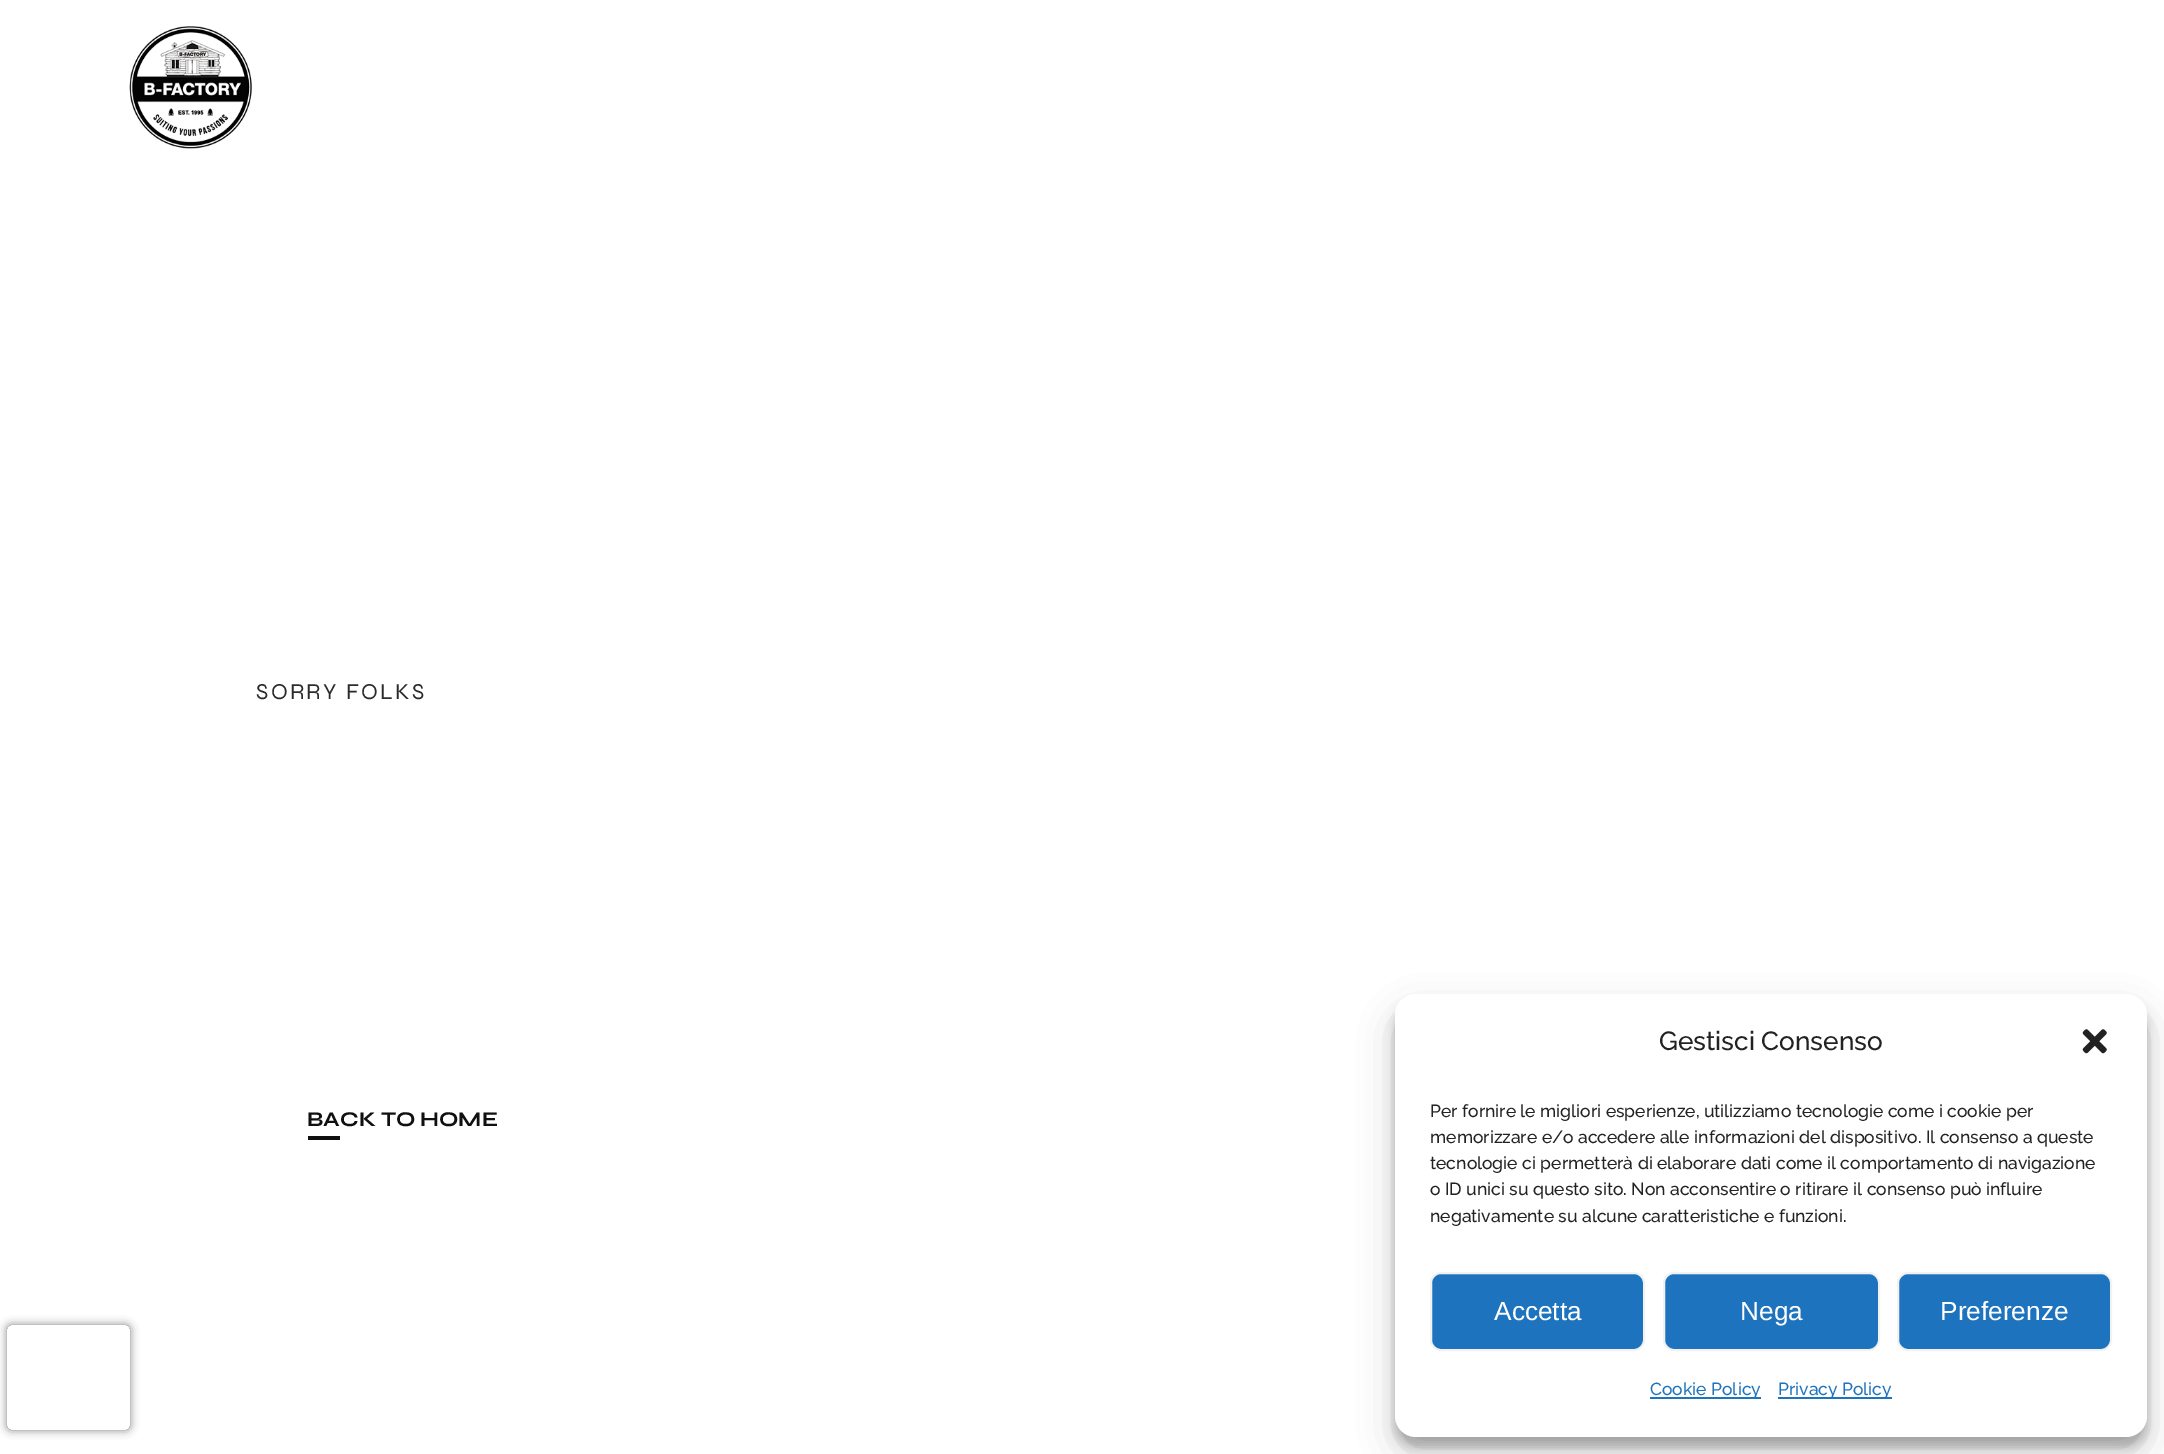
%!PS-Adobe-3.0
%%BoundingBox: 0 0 2164 1454
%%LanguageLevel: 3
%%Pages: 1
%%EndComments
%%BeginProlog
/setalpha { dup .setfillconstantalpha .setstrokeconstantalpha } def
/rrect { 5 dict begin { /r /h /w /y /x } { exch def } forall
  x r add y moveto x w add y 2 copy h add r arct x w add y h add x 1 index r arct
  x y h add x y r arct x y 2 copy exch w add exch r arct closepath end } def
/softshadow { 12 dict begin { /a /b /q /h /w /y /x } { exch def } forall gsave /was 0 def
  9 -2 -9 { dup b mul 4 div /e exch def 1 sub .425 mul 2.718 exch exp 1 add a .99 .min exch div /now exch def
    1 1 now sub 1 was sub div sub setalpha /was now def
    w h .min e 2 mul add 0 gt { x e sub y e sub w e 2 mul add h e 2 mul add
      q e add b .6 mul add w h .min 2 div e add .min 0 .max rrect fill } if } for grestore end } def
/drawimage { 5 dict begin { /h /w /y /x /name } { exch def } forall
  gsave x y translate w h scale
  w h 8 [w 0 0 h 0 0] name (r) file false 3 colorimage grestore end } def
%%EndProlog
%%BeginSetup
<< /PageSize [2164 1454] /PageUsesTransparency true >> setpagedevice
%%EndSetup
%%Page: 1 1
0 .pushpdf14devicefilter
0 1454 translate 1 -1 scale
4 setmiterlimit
1 setgray
0 0 2164 1454 rectfill
(images/1.raw) 129 26 123 123 drawimage
0.063 setgray
308 1136 32 4 rectfill
gsave
newpath 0 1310 moveto 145 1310 lineto 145 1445 lineto 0 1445 lineto closepath 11 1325 moveto 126 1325 lineto 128 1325 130 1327 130 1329 curveto 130 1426 lineto 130 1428 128 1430 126 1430 curveto 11 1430 lineto 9 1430 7 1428 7 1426 curveto 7 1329 lineto 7 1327 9 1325 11 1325 curveto closepath eoclip newpath
0.502 setgray
7 1325 123 105 4 4.5 1 softshadow
grestore
0 setgray
1395 1005 752 442 21 5 0.23 softshadow
1395 1012 752 442 21 17.5 0.19 softshadow
1 setgray
1395 994 752 443 21 rrect fill
(images/2.raw) 2082 1029 25 25 drawimage
0.118 0.451 0.745 setrgbcolor
1431 1273 213 77 10 rrect gsave fill grestore
0.949 setgray
2 setlinewidth
stroke
0.118 0.451 0.745 setrgbcolor
1664 1273 215 77 10 rrect gsave fill grestore
0.949 setgray
stroke
0.118 0.451 0.745 setrgbcolor
1898 1273 213 77 10 rrect gsave fill grestore
0.949 setgray
stroke
0.118 0.451 0.745 setrgbcolor
1650 1397 111 2 rectfill
1778 1397 114 2 rectfill
/Syne-Regular [22.75 0 0 -22.75 0 0] selectfont
0.169 setgray
256 699 moveto 2.25 0 (SORRY FOLKS) ashow
/Syne-Bold [21 0 0 -21 0 0] selectfont
0.063 setgray
307 1126 moveto (BACK TO HOME) show
/Raleway-Medium [26.25 0 0 -26.25 0 0] selectfont
0.133 setgray
1659 1050 moveto (Gestisci Consenso) show
/Raleway-Medium [17.5 0 0 -17.5 0 0] selectfont
1430 1117 moveto (Per fornire le migliori esperienze, utilizziamo tecnologie come i cookie per) show
1430 1143 moveto (memorizzare e/o accedere alle informazioni del dispositivo. Il consenso a queste) show
1430 1169 moveto (tecnologie ci permetterà di elaborare dati come il comportamento di navigazione) show
1430 1195 moveto (o ID unici su questo sito. Non acconsentire o ritirare il consenso può influire) show
1430 1222 moveto (negativamente su alcune caratteristiche e funzioni.) show
/LiberationSans-Regular [26.25 0 0 -26.25 0 0] selectfont
1 setgray
1494 1320 moveto (Accetta) show
1740 1320 moveto (Nega) show
1940 1320 moveto (Preferenze) show
/Raleway-Medium [17.5 0 0 -17.5 0 0] selectfont
0.118 0.451 0.745 setrgbcolor
1650 1395 moveto (Cookie Policy) show
1778 1395 moveto (Privacy Policy) show
.poppdf14devicefilter showpage
%%EOF
